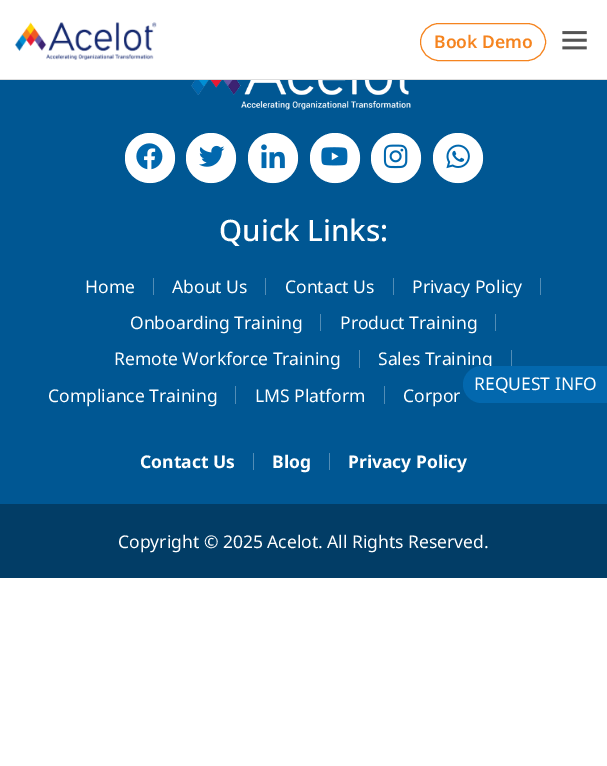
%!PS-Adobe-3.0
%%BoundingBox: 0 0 607 766
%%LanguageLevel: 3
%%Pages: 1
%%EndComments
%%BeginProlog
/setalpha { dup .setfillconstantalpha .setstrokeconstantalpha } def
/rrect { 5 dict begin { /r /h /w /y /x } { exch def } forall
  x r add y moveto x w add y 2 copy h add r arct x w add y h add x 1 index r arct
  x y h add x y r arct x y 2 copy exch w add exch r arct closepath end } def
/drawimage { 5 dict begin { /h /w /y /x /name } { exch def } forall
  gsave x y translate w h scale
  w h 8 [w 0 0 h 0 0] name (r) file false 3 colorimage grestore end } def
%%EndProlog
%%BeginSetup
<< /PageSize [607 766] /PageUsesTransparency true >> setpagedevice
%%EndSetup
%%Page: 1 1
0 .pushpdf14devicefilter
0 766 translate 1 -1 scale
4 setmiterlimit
1 setgray
0 0 607 766 rectfill
0.871 setgray
0 79 607 1 rectfill
(images/1.raw) 15 22 142 38 drawimage
0.961 0.518 0.122 setrgbcolor
420.5 23.5 125 37 18.5 rrect stroke
(images/2.raw) 562 31 25 19 drawimage
0 0.341 0.576 setrgbcolor
0 80 607 424 rectfill
(images/3.raw) 191 80 220 30 drawimage
1 setgray
newpath 150 158 25 0 360 arc closepath fill
0.19 setalpha
newpath 150 158 24.5 0 360 arc closepath stroke
1 setalpha
(images/4.raw) 136 143 27 27 drawimage
newpath 211 158 25 0 360 arc closepath fill
0.19 setalpha
newpath 211 158 24.5 0 360 arc closepath stroke
1 setalpha
(images/5.raw) 199 145 26 22 drawimage
newpath 273 158 25 0 360 arc closepath fill
0.19 setalpha
newpath 273 158 24.5 0 360 arc closepath stroke
1 setalpha
(images/6.raw) 261 144 24 25 drawimage
newpath 335 158 25 0 360 arc closepath fill
0.19 setalpha
newpath 335 158 24.5 0 360 arc closepath stroke
1 setalpha
(images/7.raw) 321 147 27 19 drawimage
newpath 396 158 25 0 360 arc closepath fill
0.19 setalpha
newpath 396 158 24.5 0 360 arc closepath stroke
1 setalpha
(images/8.raw) 383 144 25 25 drawimage
newpath 458 158 25 0 360 arc closepath fill
0.19 setalpha
newpath 458 158 24.5 0 360 arc closepath stroke
1 setalpha
(images/9.raw) 446 144 24 25 drawimage
0.322 0.553 0.714 setrgbcolor
153 278 1 17 rectfill
265 278 1 17 rectfill
393 278 1 17 rectfill
540 278 1 17 rectfill
320 314 1 17 rectfill
495 314 1 17 rectfill
359 350 1 18 rectfill
511 350 1 18 rectfill
235 386 1 18 rectfill
384 386 1 18 rectfill
253 453 1 17 rectfill
329 453 1 17 rectfill
0.008 0.239 0.4 setrgbcolor
0 504 607 74 rectfill
/NotoSans-SemiBold [17.5 0 0 -17.5 0 0] selectfont
0.961 0.518 0.122 setrgbcolor
434 48 moveto (Book Demo) show
/NotoSans-Medium [29.5 0 0 -29.5 0 0] selectfont
1 setgray
219 241 moveto (Quick Links:) show
/NotoSans-Regular [17.5 0 0 -17.5 0 0] selectfont
85 293 moveto (Home) show
172 293 moveto (About Us) show
285 293 moveto (Contact Us) show
412 293 moveto (Privacy Policy) show
130 329 moveto (Onboarding Training) show
340 329 moveto (Product Training) show
114 365 moveto (Remote Workforce Training) show
378 365 moveto (Sales Training) show
48 402 moveto (Compliance Training) show
255 402 moveto (LMS Platform) show
403 402 moveto (Corpor) show
/NotoSans-Bold [17.5 0 0 -17.5 0 0] selectfont
140 468 moveto (Contact Us) show
272 468 moveto (Blog) show
348 468 moveto (Privacy Policy) show
/NotoSans-Regular [17.5 0 0 -17.5 0 0] selectfont
118 548 moveto (Copyright © 2025 Acelot. All Rights Reserved.) show
0.012 0.408 0.682 setrgbcolor
newpath 481.5 366 moveto 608 366 lineto 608 403 lineto 481.5 403 lineto 471.5 403 463 394.5 463 384.5 curveto 463 374.5 471.5 366 481.5 366 curveto closepath fill
1 setgray
474 390 moveto (REQUEST INFO) show
.poppdf14devicefilter showpage
%%EOF
